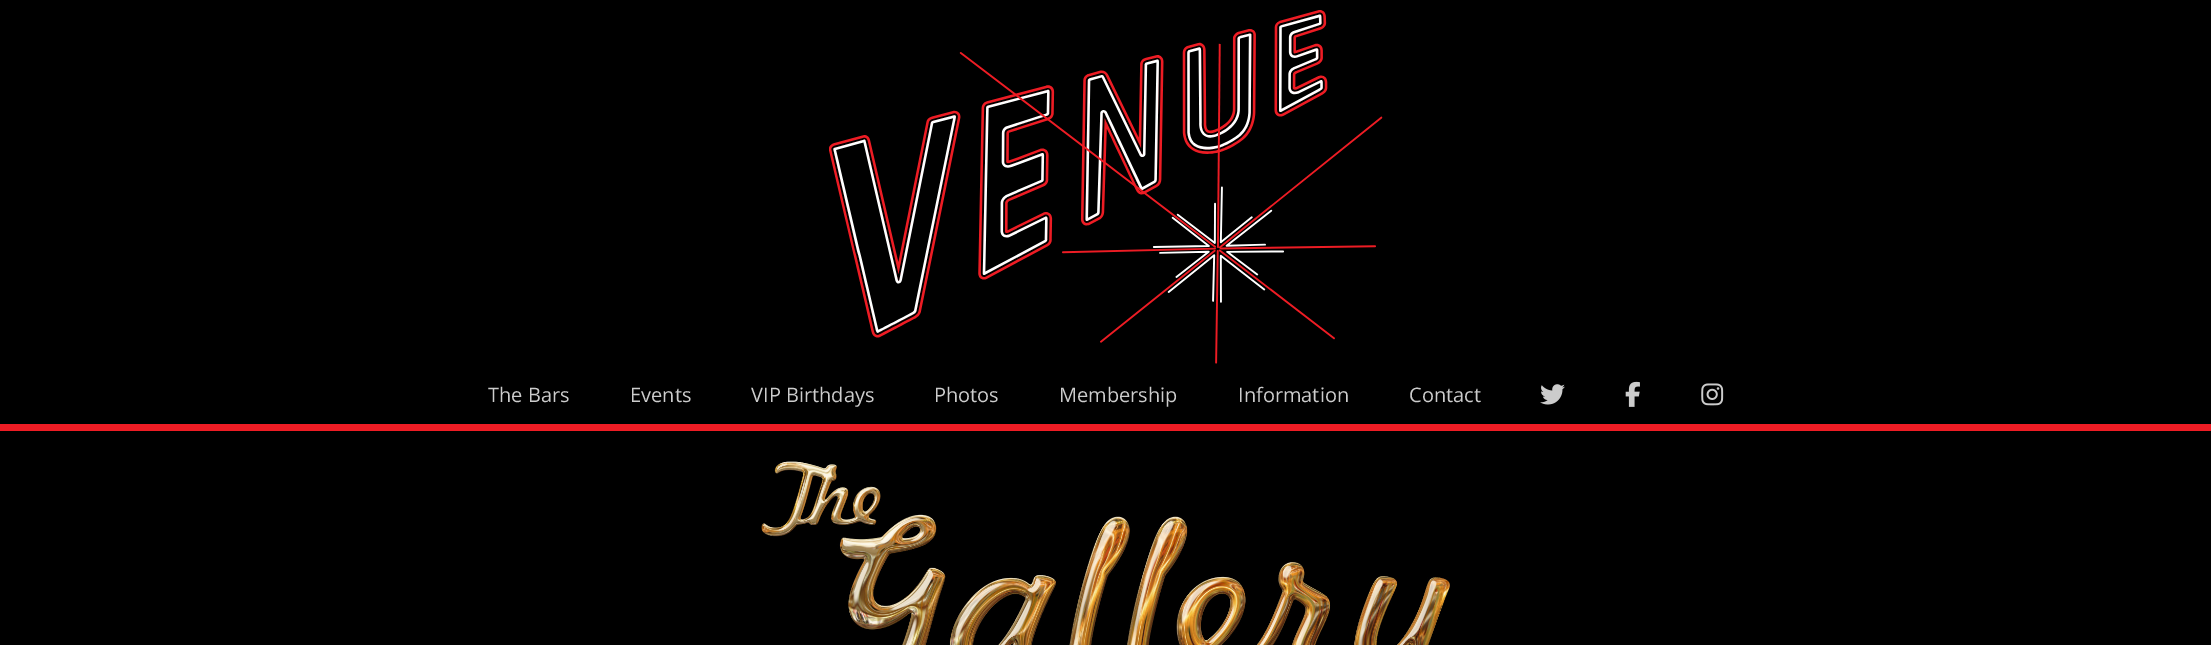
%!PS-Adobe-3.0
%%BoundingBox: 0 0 2211 645
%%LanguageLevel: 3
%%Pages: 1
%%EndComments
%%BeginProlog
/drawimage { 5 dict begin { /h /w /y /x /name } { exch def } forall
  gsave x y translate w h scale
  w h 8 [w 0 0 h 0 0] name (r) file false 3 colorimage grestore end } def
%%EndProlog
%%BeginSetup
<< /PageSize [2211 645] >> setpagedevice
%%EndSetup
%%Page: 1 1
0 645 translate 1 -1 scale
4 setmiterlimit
0 setgray
0 0 2211 645 rectfill
0.929 0.11 0.141 setrgbcolor
0 424 2211 7 rectfill
(images/1.raw) 829 10 554 354 drawimage
(images/2.raw) 1540 384 25 21 drawimage
(images/3.raw) 1625 381 15 26 drawimage
(images/4.raw) 1701 383 23 23 drawimage
(images/5.raw) 761 461 689 184 drawimage
/OpenSans-Regular [20 0 0 -20 0 0] selectfont
0.8 setgray
488 402 moveto (The Bars) show
630 402 moveto (Events) show
751 402 moveto (VIP Birthdays) show
934 402 moveto (Photos) show
1059 402 moveto (Membership) show
1238 402 moveto (Information) show
1409 402 moveto (Contact) show
showpage
%%EOF
